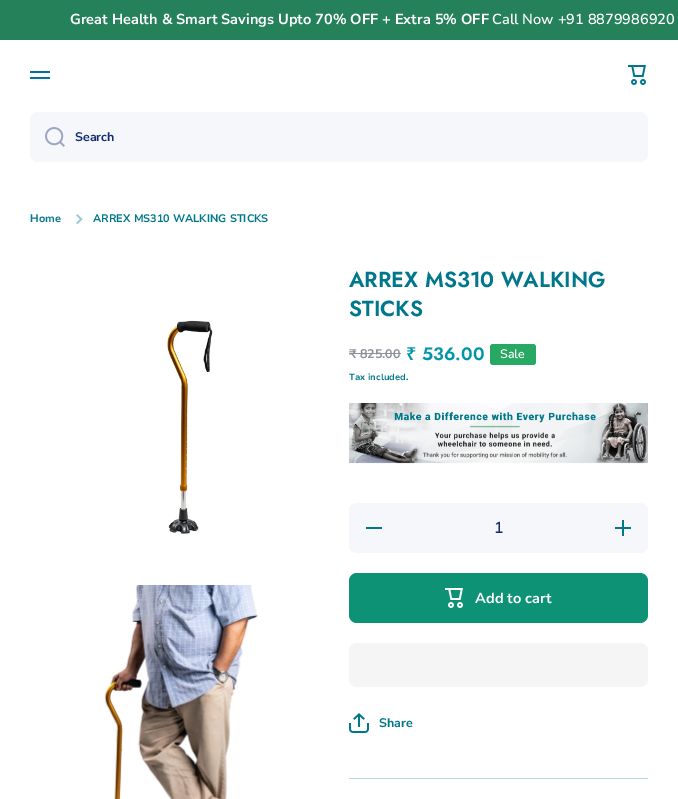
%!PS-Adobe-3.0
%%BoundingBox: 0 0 678 799
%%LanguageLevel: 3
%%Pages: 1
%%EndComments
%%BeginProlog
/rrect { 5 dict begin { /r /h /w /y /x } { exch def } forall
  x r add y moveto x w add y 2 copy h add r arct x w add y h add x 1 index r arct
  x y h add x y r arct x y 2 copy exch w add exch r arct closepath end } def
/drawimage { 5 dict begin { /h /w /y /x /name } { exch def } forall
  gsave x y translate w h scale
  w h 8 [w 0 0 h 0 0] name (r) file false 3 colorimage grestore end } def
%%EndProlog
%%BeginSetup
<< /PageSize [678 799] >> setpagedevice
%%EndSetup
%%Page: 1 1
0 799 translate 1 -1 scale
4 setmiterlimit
1 setgray
0 0 678 799 rectfill
0.145 0.506 0.349 setrgbcolor
0 0 678 40 rectfill
0 0.467 0.545 setrgbcolor
30 71 20 2 rectfill
30 77 20 2 rectfill
(images/1.raw) 628 65 18 20 drawimage
0.965 0.969 0.98 setrgbcolor
30 112 618 50 8 rrect fill
(images/2.raw) 45 127 20 20 drawimage
(images/3.raw) 76 214 7 11 drawimage
(images/4.raw) 166 320 47 214 drawimage
(images/5.raw) 104 585 154 214 drawimage
0.549 0.565 0.6 setrgbcolor
349 353 52 1 rectfill
0.157 0.663 0.388 setrgbcolor
490 344 46 21 3 rrect fill
(images/6.raw) 349 403 299 61 drawimage
0.965 0.969 0.98 setrgbcolor
349 503 299 50 8 rrect fill
0 0.467 0.545 setrgbcolor
366 527 16 2 rectfill
(images/7.raw) 615 520 16 16 drawimage
0.051 0.573 0.463 setrgbcolor
349 573 299 50 8 rrect fill
(images/8.raw) 445 588 18 20 drawimage
0.961 setgray
349 643 299 44 8 rrect fill
(images/9.raw) 349 713 20 20 drawimage
0.702 0.839 0.863 setrgbcolor
349 778 299 1 rectfill
/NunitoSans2-Bold [14.55 0 0 -14.55 0 0] selectfont
1 setgray
70 24 moveto (Great Health & Smart Savings Upto 70% OFF + Extra 5% OFF) show
/NunitoSans-SemiBold [14.55 0 0 -14.55 0 0] selectfont
492 24 moveto (Call Now +91 8879986920) show
/NunitoSans2-Bold [12.5 0 0 -12.5 0 0] selectfont
0.078 0.173 0.451 setrgbcolor
75 141 moveto (Search) show
/NunitoSans-Bold [10.9 0 0 -10.9 0 0] selectfont
0 0.467 0.545 setrgbcolor
30 222 moveto (Home) show
93 222 moveto (ARREX MS310 WALKING STICKS) show
/Jost-SemiBold [21.75 0 0 -21.75 0 0] selectfont
349 287 moveto (ARREX MS310 WALKING) show
349 316 moveto (STICKS) show
/NunitoSans2-Bold [12.5 0 0 -12.5 0 0] selectfont
0.549 0.565 0.6 setrgbcolor
349 358 moveto (₹ 825.00) show
/NotoSans-SemiBold [18 0 0 -18 0 0] selectfont
0 0.584 0.663 setrgbcolor
406 360 moveto (₹) show
/Jost-SemiBold [18 0 0 -18 0 0] selectfont
422 360 moveto (536.00) show
/NunitoSans-SemiBold [12.5 0 0 -12.5 0 0] selectfont
1 setgray
500 358 moveto (Sale) show
/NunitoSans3-Bold [9 0 0 -9 0 0] selectfont
0 0.467 0.545 setrgbcolor
349 380 moveto (Tax included.) show
/NunitoSans-SemiBold [16 0 0 -16 0 0] selectfont
0.078 0.173 0.451 setrgbcolor
494 533 moveto (1) show
/NunitoSans2-Bold [14.55 0 0 -14.55 0 0] selectfont
1 setgray
475 603 moveto (Add to cart) show
/NunitoSans2-Bold [12.5 0 0 -12.5 0 0] selectfont
0 0.467 0.545 setrgbcolor
379 727 moveto (Share) show
showpage
%%EOF
